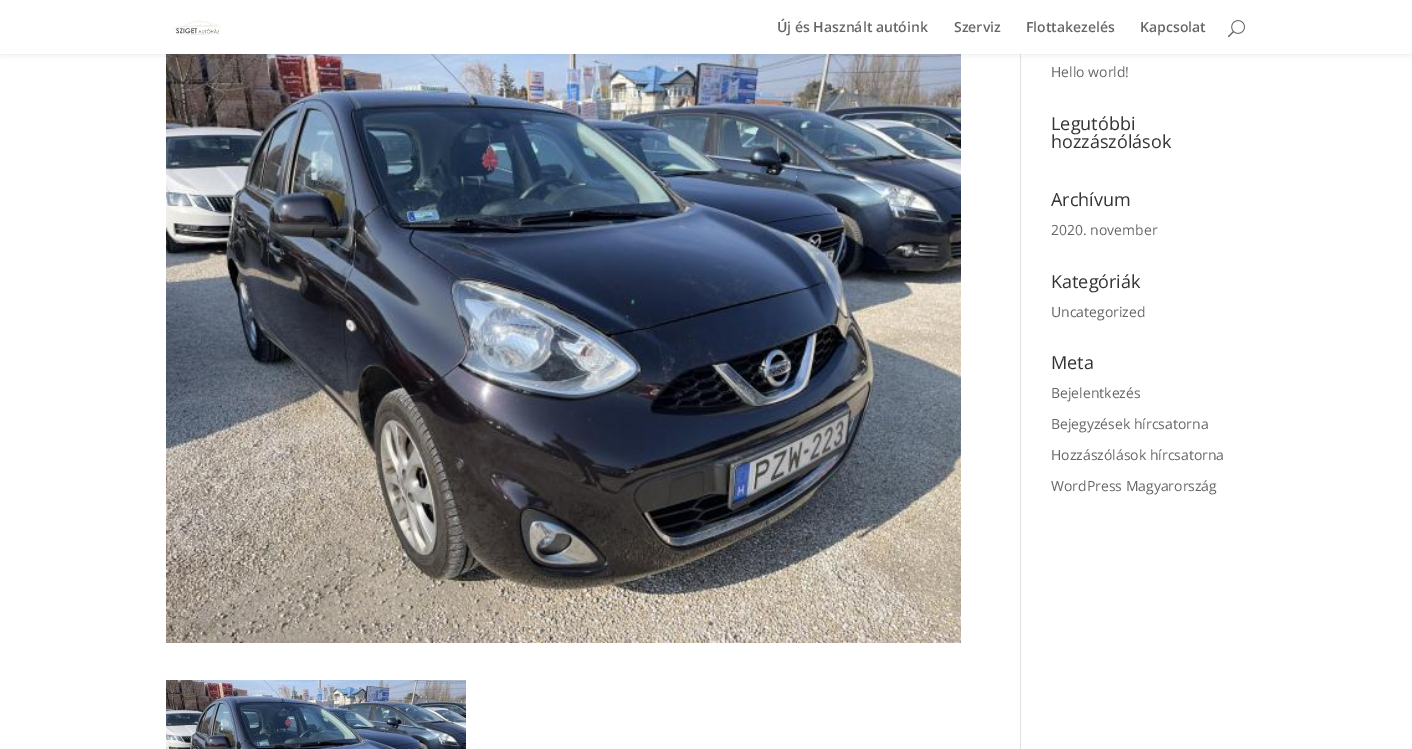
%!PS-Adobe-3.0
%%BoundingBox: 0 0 1412 749
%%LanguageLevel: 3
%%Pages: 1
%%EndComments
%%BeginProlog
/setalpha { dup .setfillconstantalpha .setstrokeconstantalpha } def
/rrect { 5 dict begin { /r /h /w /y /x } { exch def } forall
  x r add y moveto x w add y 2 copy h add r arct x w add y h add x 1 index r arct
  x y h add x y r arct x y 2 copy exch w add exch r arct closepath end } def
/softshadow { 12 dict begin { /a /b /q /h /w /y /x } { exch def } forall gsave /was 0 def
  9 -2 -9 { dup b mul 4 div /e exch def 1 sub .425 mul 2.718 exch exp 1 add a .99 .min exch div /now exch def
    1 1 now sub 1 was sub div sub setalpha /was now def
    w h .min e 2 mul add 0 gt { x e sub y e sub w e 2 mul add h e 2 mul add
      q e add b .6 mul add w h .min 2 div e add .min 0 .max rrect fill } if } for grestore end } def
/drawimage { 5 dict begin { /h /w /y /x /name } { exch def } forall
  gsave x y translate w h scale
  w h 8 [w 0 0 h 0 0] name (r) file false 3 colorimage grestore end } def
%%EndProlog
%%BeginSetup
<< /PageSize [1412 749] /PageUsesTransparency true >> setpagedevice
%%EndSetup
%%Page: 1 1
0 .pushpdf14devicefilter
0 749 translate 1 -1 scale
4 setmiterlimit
1 setgray
0 0 1412 749 rectfill
0.886 setgray
1020 54 1 695 rectfill
(images/3.raw) 166 54 795 589 drawimage
0 setgray
0 0 1412 54 0 3.5 0.1 softshadow
1 setgray
0 0 1412 54 rectfill
(images/1.raw) 173 17 49 18 drawimage
(images/2.raw) 1228 20 17 18 drawimage
(images/4.raw) 166 680 300 69 drawimage
/OpenSans-SemiBold [14 0 0 -14 0 0] selectfont
0.4 setgray
777 32 moveto (Új és Használt autóink) show
954 32 moveto (Szerviz) show
1026 32 moveto (Flottakezelés) show
1140 32 moveto (Kapcsolat) show
/OpenSans-Regular [14 0 0 -14 0 0] selectfont
1051 77 moveto (Hello world!) show
/OpenSans-Regular [18 0 0 -18 0 0] selectfont
0.2 setgray
1051 130 moveto (Legutóbbi) show
1051 148 moveto (hozzászólások) show
1051 206 moveto (Archívum) show
/OpenSans-Regular [14 0 0 -14 0 0] selectfont
0.4 setgray
1051 235 moveto (2020. november) show
/OpenSans-Regular [18 0 0 -18 0 0] selectfont
0.2 setgray
1051 288 moveto (Kategóriák) show
/OpenSans-Regular [14 0 0 -14 0 0] selectfont
0.4 setgray
1051 317 moveto (Uncategorized) show
/OpenSans-Regular [18 0 0 -18 0 0] selectfont
0.2 setgray
1051 369 moveto (Meta) show
/OpenSans-Regular [14 0 0 -14 0 0] selectfont
0.4 setgray
1051 398 moveto (Bejelentkezés) show
1051 429 moveto (Bejegyzések hírcsatorna) show
1051 460 moveto (Hozzászólások hírcsatorna) show
1051 491 moveto (WordPress Magyarország) show
.poppdf14devicefilter showpage
%%EOF
